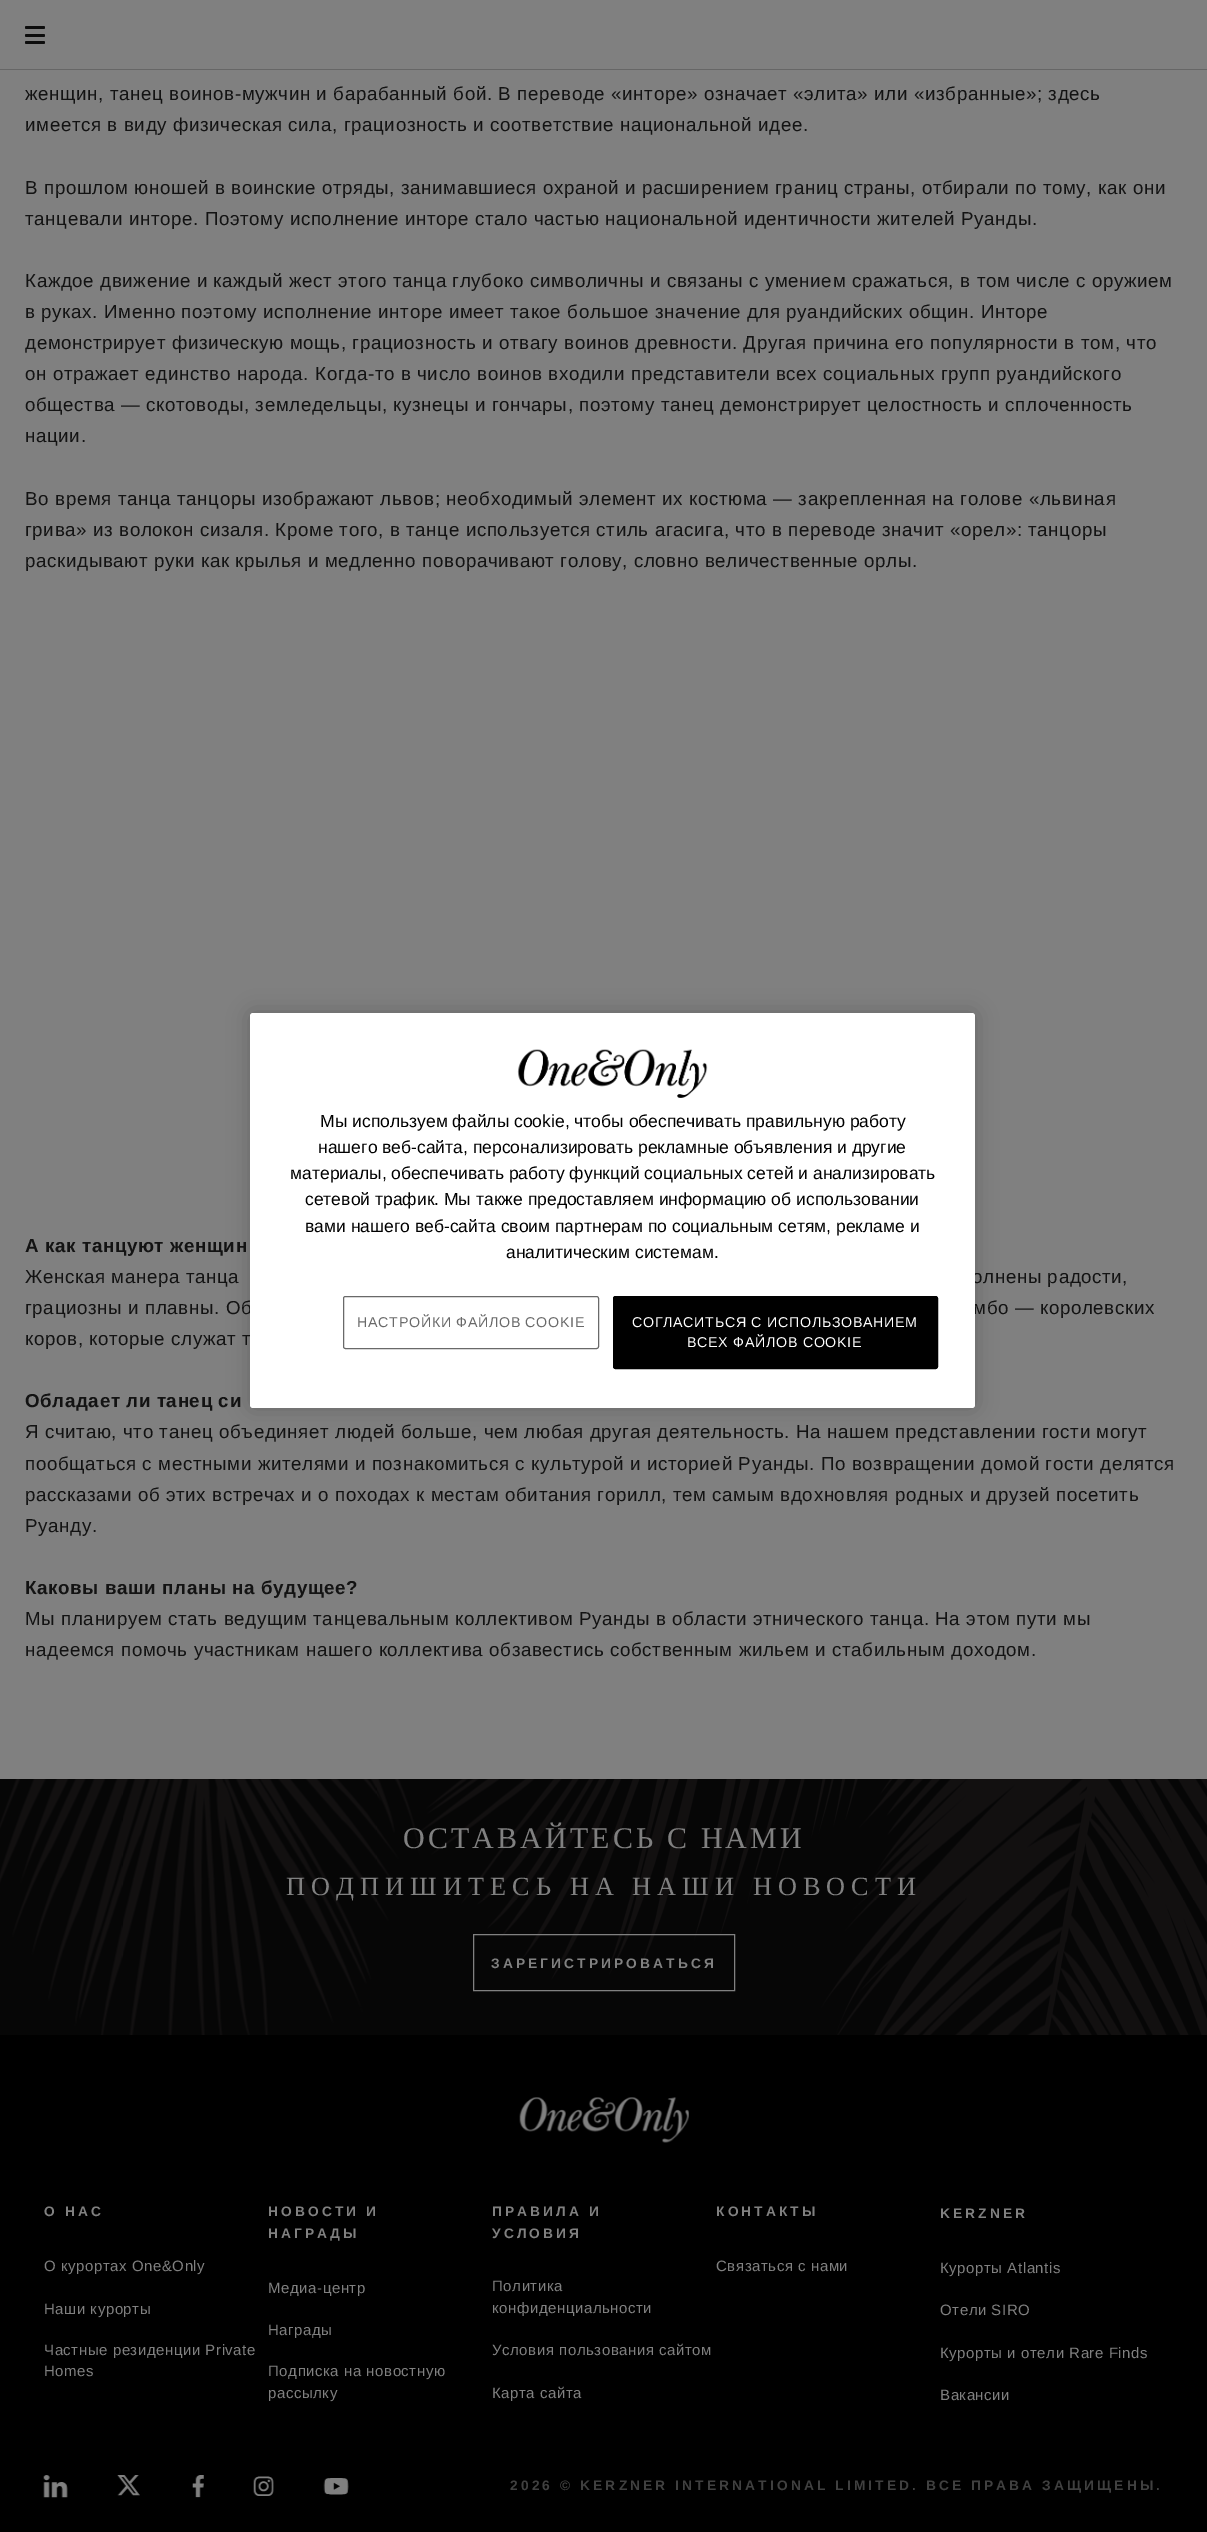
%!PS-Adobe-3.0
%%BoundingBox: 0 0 1207 2532
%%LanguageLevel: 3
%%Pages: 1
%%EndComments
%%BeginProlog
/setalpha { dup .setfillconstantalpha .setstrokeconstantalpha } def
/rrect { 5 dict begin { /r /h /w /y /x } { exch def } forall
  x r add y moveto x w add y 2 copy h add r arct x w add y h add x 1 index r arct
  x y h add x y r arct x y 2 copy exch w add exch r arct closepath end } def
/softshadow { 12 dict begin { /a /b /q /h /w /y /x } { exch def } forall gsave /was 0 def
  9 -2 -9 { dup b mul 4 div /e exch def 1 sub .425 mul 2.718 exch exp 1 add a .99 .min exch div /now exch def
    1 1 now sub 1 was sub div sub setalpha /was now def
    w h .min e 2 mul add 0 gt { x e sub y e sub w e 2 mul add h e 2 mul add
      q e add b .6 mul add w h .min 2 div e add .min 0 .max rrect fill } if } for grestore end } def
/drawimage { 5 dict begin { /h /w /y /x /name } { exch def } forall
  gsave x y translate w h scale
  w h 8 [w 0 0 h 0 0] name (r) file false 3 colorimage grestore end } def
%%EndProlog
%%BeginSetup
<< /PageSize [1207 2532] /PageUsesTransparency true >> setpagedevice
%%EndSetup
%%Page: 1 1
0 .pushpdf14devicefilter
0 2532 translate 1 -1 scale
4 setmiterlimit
0 setgray
0 0 1207 2532 rectfill
0.502 setgray
0 70 1207 1709 rectfill
0 0 1207 69 rectfill
0.051 setgray
25 26 20 3 1.5 rrect fill
25 34 20 3 1.5 rrect fill
25 41 20 3 1.5 rrect fill
0.4 setgray
0 69 1207 1 rectfill
0.027 setgray
0 1779 1207 256 rectfill
(images/1.raw) 0 1779 420 256 drawimage
(images/2.raw) 418 1779 789 256 drawimage
0.502 setgray
473.5 1934.5 261 56 rectstroke
(images/3.raw) 519 2097 170 46 drawimage
(images/4.raw) 43 2475 25 23 drawimage
(images/5.raw) 117 2475 23 21 drawimage
(images/6.raw) 192 2475 12 23 drawimage
(images/7.raw) 253 2476 21 20 drawimage
(images/8.raw) 323 2478 26 17 drawimage
0 setgray
250 1013 725 395 3 11 0.2 softshadow
/LiberationSans-Regular [18.75 0 0 -18.75 0 0] selectfont
0.075 setgray
25 100 moveto 0.62 0 (женщин, танец воинов-мужчин и барабанный бой. В переводе «инторе» означает «элита» или «избранные»; здесь) ashow
25 131 moveto 0.62 0 (имеется в виду физическая сила, грациозность и соответствие национальной идее.) ashow
25 194 moveto 0.62 0 (В прошлом юношей в воинские отряды, занимавшиеся охраной и расширением границ страны, отбирали по тому, как они) ashow
25 225 moveto 0.62 0 (танцевали инторе. Поэтому исполнение инторе стало частью национальной идентичности жителей Руанды.) ashow
25 287 moveto 0.62 0 (Каждое движение и каждый жест этого танца глубоко символичны и связаны с умением сражаться, в том числе с оружием) ashow
25 318 moveto 0.62 0 (в руках. Именно поэтому исполнение инторе имеет такое большое значение для руандийских общин. Инторе) ashow
25 349 moveto 0.62 0 (демонстрирует физическую мощь, грациозность и отвагу воинов древности. Другая причина его популярности в том, что) ashow
25 380 moveto 0.62 0 (он отражает единство народа. Когда-то в число воинов входили представители всех социальных групп руандийского) ashow
25 411 moveto 0.62 0 (общества — скотоводы, земледельцы, кузнецы и гончары, поэтому танец демонстрирует целостность и сплоченность) ashow
25 442 moveto 0.62 0 (нации.) ashow
25 505 moveto 0.62 0 (Во время танца танцоры изображают львов; необходимый элемент их костюма — закрепленная на голове «львиная) ashow
25 536 moveto 0.62 0 (грива» из волокон сизаля. Кроме того, в танце используется стиль агасига, что в переводе значит «орел»: танцоры) ashow
25 567 moveto 0.62 0 (раскидывают руки как крылья и медленно поворачивают голову, словно величественные орлы.) ashow
/LiberationSans-Bold [18.75 0 0 -18.75 0 0] selectfont
25 1252 moveto 0.62 0 (А как танцуют женщин) ashow
/LiberationSans-Regular [18.75 0 0 -18.75 0 0] selectfont
25 1283 moveto 0.62 0 (Женская манера танца) ashow
972 1283 moveto 0.62 0 (олнены радости,) ashow
25 1314 moveto 0.62 0 (грациозны и плавны. Об) ashow
973 1314 moveto 0.62 0 (мбо — королевских) ashow
25 1345 moveto 0.62 0 (коров, которые служат т) ashow
/LiberationSans-Bold [18.75 0 0 -18.75 0 0] selectfont
25 1407 moveto 0.62 0 (Обладает ли танец си) ashow
/LiberationSans-Regular [18.75 0 0 -18.75 0 0] selectfont
25 1438 moveto 0.62 0 (Я считаю, что танец объединяет людей больше, чем любая другая деятельность. На нашем представлении гости могут) ashow
25 1470 moveto 0.62 0 (пообщаться с местными жителями и познакомиться с культурой и историей Руанды. По возвращении домой гости делятся) ashow
25 1501 moveto 0.62 0 (рассказами об этих встречах и о походах к местам обитания горилл, тем самым вдохновляя родных и друзей посетить) ashow
25 1532 moveto 0.62 0 (Руанду.) ashow
/LiberationSans-Bold [18.75 0 0 -18.75 0 0] selectfont
25 1594 moveto 0.62 0 (Каковы ваши планы на будущее?) ashow
/LiberationSans-Regular [18.75 0 0 -18.75 0 0] selectfont
25 1625 moveto 0.62 0 (Мы планируем стать ведущим танцевальным коллективом Руанды в области этнического танца. На этом пути мы) ashow
25 1656 moveto 0.62 0 (надеемся помочь участникам нашего коллектива обзавестись собственным жильем и стабильным доходом.) ashow
/LiberationSerif-Regular [30 0 0 -30 0 0] selectfont
0.502 setgray
403 1848 moveto 3.12 0 (ОСТАВАЙТЕСЬ С НАМИ) ashow
/LiberationSerif-Regular [26.25 0 0 -26.25 0 0] selectfont
286 1895 moveto 6.1 0 (ПОДПИШИТЕСЬ НА НАШИ НОВОСТИ) ashow
/LiberationSans-Bold [13.75 0 0 -13.75 0 0] selectfont
491 1968 moveto 3.12 0 (ЗАРЕГИСТРИРОВАТЬСЯ) ashow
44 2216 moveto 3.12 0 (О НАС) ashow
/LiberationSans-Regular [15 0 0 -15 0 0] selectfont
44 2271 moveto 0.55 0 (О курортах One&Only) ashow
44 2314 moveto 0.55 0 (Наши курорты) ashow
44 2355 moveto 0.55 0 (Частные резиденции Private) ashow
44 2376 moveto 0.55 0 (Homes) ashow
/LiberationSans-Bold [13.75 0 0 -13.75 0 0] selectfont
268 2216 moveto 3.12 0 (НОВОСТИ И) ashow
268 2238 moveto 3.12 0 (НАГРАДЫ) ashow
/LiberationSans-Regular [15 0 0 -15 0 0] selectfont
268 2293 moveto 0.55 0 (Медиа-центр) ashow
268 2335 moveto 0.55 0 (Награды) ashow
268 2376 moveto 0.55 0 (Подписка на новостную) ashow
268 2398 moveto 0.55 0 (рассылку) ashow
/LiberationSans-Bold [13.75 0 0 -13.75 0 0] selectfont
492 2216 moveto 3.12 0 (ПРАВИЛА И) ashow
492 2238 moveto 3.12 0 (УСЛОВИЯ) ashow
/LiberationSans-Regular [15 0 0 -15 0 0] selectfont
492 2291 moveto 0.55 0 (Политика) ashow
492 2313 moveto 0.55 0 (конфиденциальности) ashow
492 2355 moveto 0.55 0 (Условия пользования сайтом) ashow
492 2398 moveto 0.55 0 (Карта сайта) ashow
/LiberationSans-Bold [13.75 0 0 -13.75 0 0] selectfont
716 2216 moveto 3.12 0 (КОНТАКТЫ) ashow
/LiberationSans-Regular [15 0 0 -15 0 0] selectfont
716 2271 moveto 0.55 0 (Связаться с нами) ashow
/LiberationSans-Bold [13.75 0 0 -13.75 0 0] selectfont
940 2218 moveto 3.12 0 (KERZNER) ashow
/LiberationSans-Regular [15 0 0 -15 0 0] selectfont
940 2273 moveto 0.55 0 (Курорты Atlantis) ashow
940 2315 moveto 0.55 0 (Отели SIRO) ashow
940 2358 moveto 0.55 0 (Курорты и отели Rare Finds) ashow
940 2400 moveto 0.55 0 (Вакансии) ashow
/LiberationSans-Bold [13.75 0 0 -13.75 0 0] selectfont
0.251 setgray
510 2490 moveto 3.12 0 (2026 © KERZNER INTERNATIONAL LIMITED. ВСЕ ПРАВА ЗАЩИЩЕНЫ.) ashow
1 setgray
250 1013 725 395 3 rrect fill
(images/9.raw) 517 1049 191 49 drawimage
/LiberationSans-Regular [17.5 0 0 -17.5 0 0] selectfont
0 setgray
320 1127 moveto (Мы используем файлы cookie, чтобы обеспечивать правильную работу) show
318 1153 moveto (нашего веб-сайта, персонализировать рекламные объявления и другие) show
290 1179 moveto (материалы, обеспечивать работу функций социальных сетей и анализировать) show
305 1205 moveto (сетевой трафик. Мы также предоставляем информацию об использовании) show
305 1232 moveto (вами нашего веб-сайта своим партнерам по социальным сетям, рекламе и) show
506 1258 moveto (аналитическим системам.) show
0.412 setgray
343.5 1296.5 255 52 2 rrect stroke
/LiberationSans-Regular [14.25 0 0 -14.25 0 0] selectfont
357 1327 moveto 0.7 0 (НАСТРОЙКИ ФАЙЛОВ COOKIE) ashow
0 setgray
613.5 1296.5 324 72 2 rrect gsave fill grestore
stroke
1 setgray
632 1327 moveto 0.7 0 (СОГЛАСИТЬСЯ С ИСПОЛЬЗОВАНИЕМ) ashow
687 1347 moveto 0.7 0 (ВСЕХ ФАЙЛОВ COOKIE) ashow
.poppdf14devicefilter showpage
%%EOF
